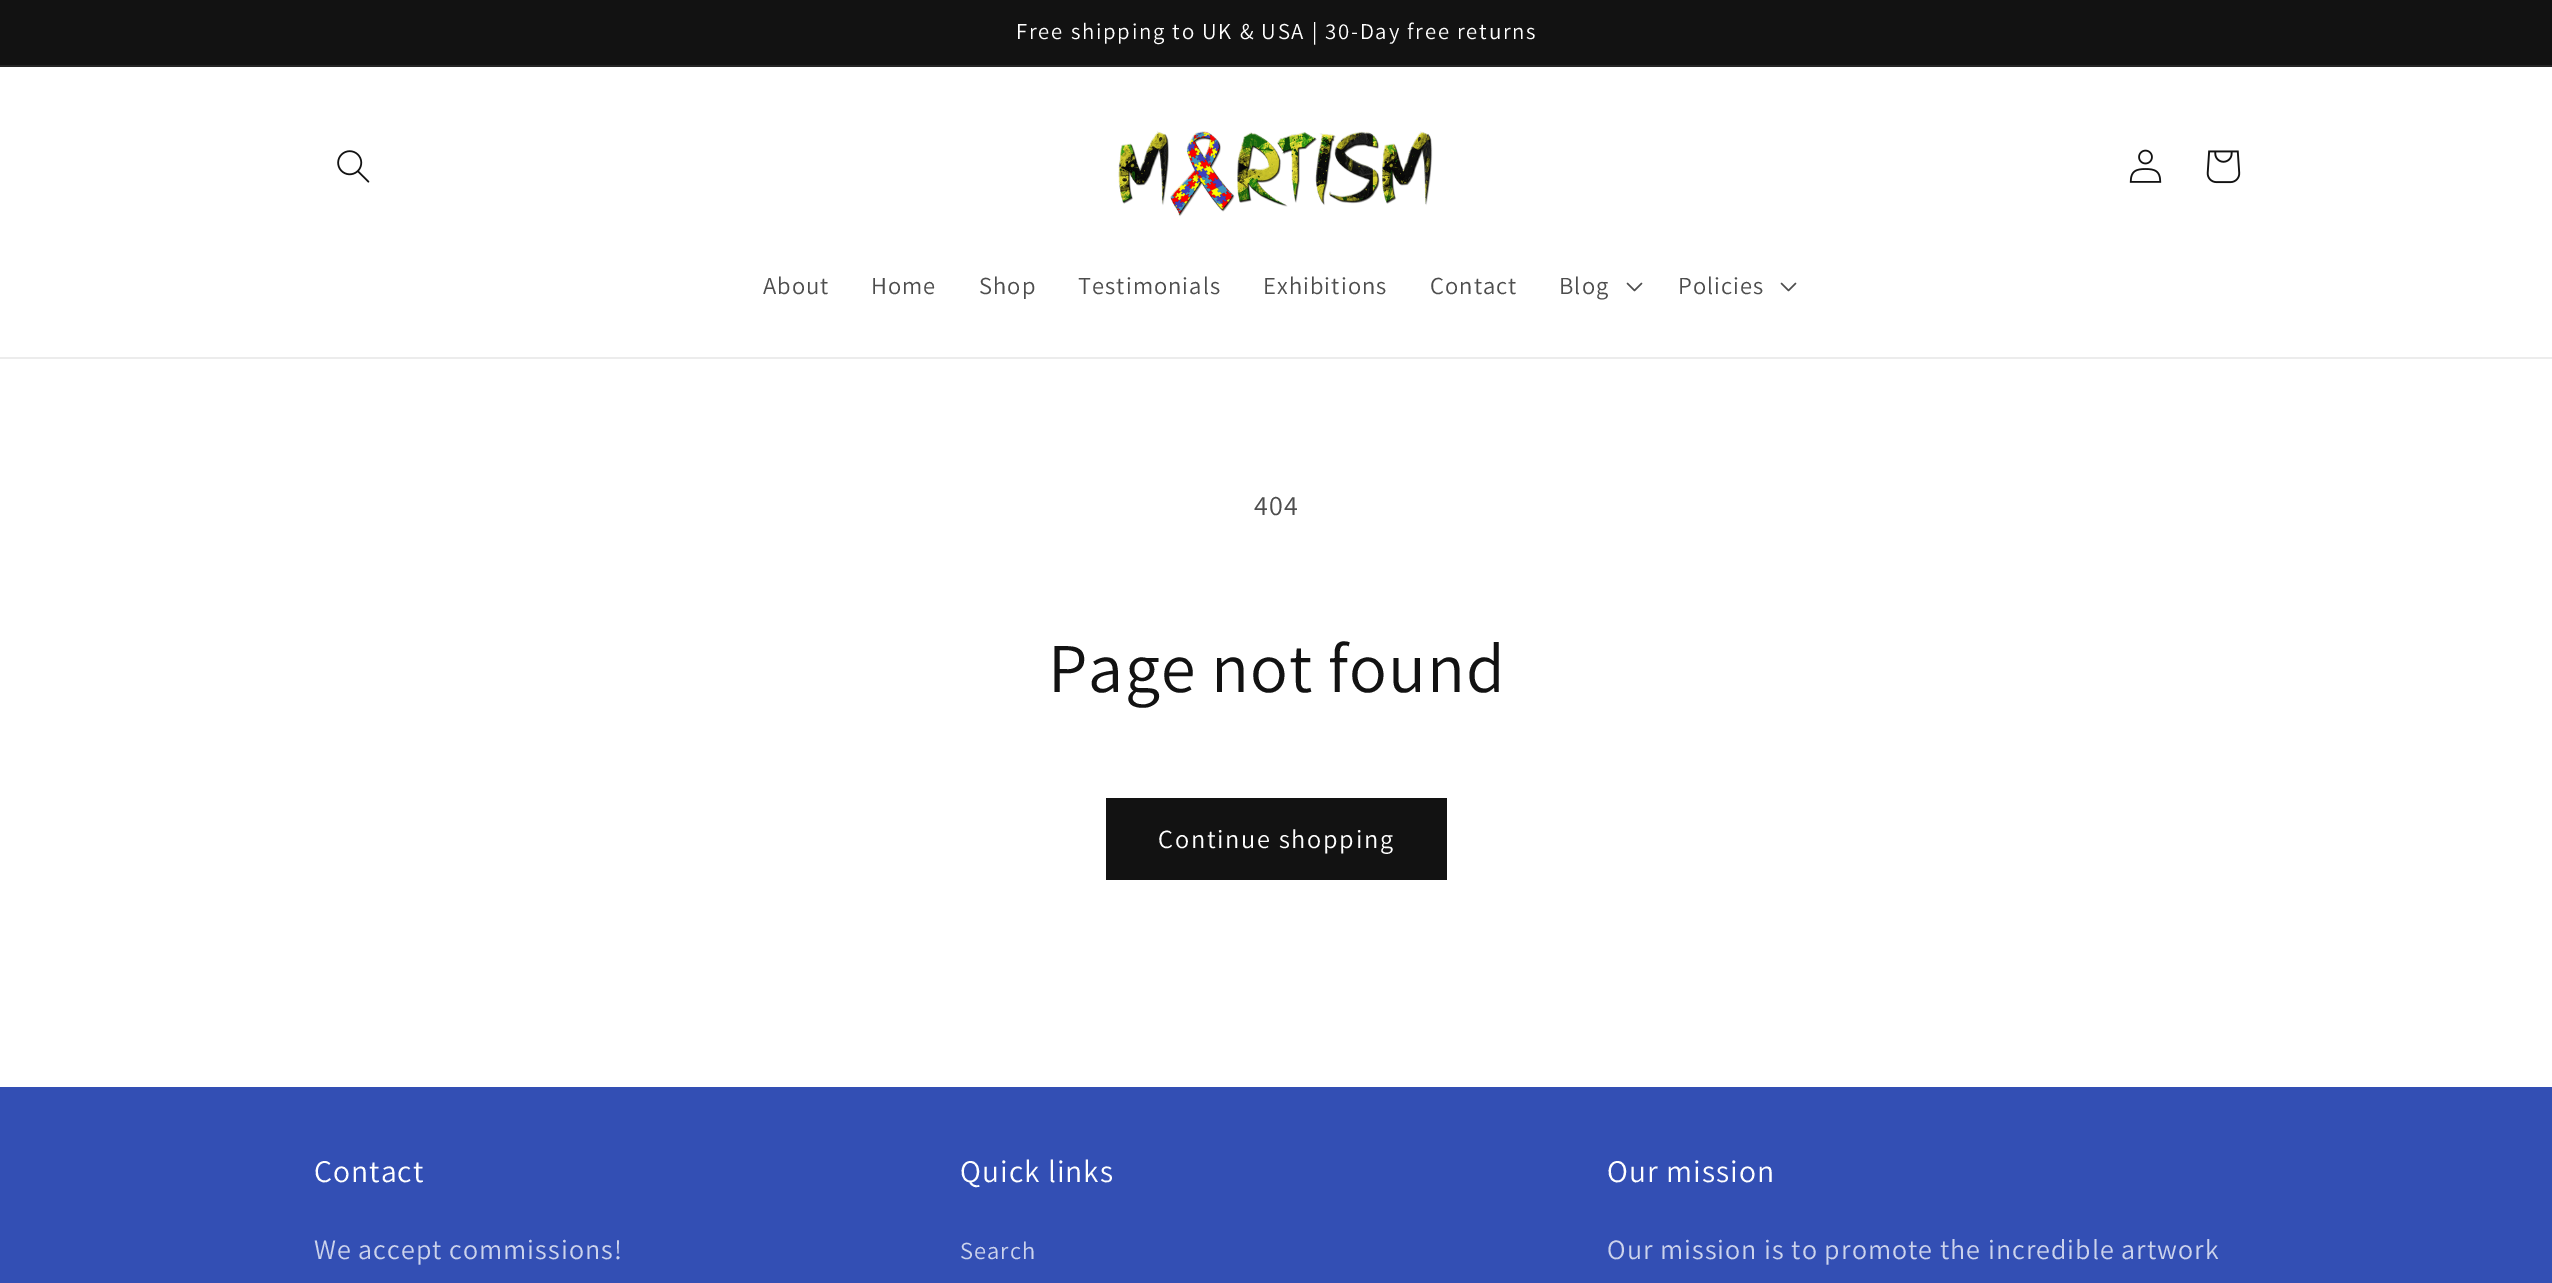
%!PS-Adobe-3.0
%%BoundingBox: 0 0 2552 1283
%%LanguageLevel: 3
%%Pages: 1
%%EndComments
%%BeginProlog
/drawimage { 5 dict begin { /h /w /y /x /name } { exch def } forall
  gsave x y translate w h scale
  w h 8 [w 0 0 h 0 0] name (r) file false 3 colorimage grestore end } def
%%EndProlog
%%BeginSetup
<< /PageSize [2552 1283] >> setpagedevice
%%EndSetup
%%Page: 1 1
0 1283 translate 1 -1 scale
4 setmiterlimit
1 setgray
0 0 2552 1283 rectfill
0.071 setgray
0 0 2552 65 rectfill
0.145 setgray
0 65 2552 2 rectfill
0.925 setgray
0 357 2552 2 rectfill
(images/1.raw) 337 150 33 33 drawimage
(images/2.raw) 1118 131 315 86 drawimage
(images/3.raw) 2129 149 33 34 drawimage
(images/4.raw) 2206 150 35 34 drawimage
(images/5.raw) 1626 282 17 10 drawimage
(images/5.raw) 1780 282 17 10 drawimage
0.071 setgray
1106 798 341 82 rectfill
0.2 0.31 0.706 setrgbcolor
0 1087 2552 196 rectfill
/Assistant-Regular [22.75 0 0 -22.75 0 0] selectfont
1 setgray
1016 39 moveto 1.75 0 (Free shipping to UK & USA | 30-Day free returns) ashow
/Assistant-Regular [24.5 0 0 -24.5 0 0] selectfont
0.302 setgray
763 294 moveto 1.05 0 (About) ashow
871 294 moveto 1.05 0 (Home) ashow
979 294 moveto 1.05 0 (Shop) ashow
1078 294 moveto 1.05 0 (Testimonials) ashow
1263 294 moveto 1.05 0 (Exhibitions) ashow
1430 294 moveto 1.05 0 (Contact) ashow
1559 294 moveto 1.05 0 (Blog) ashow
1678 294 moveto 1.05 0 (Policies) ashow
/Assistant-Regular [28 0 0 -28 0 0] selectfont
1254 515 moveto 1.05 0 (404) ashow
/Assistant-Regular [70 0 0 -70 0 0] selectfont
0.071 setgray
1048 692 moveto 1.05 0 (Page not found) ashow
/Assistant-Regular [26.25 0 0 -26.25 0 0] selectfont
1 setgray
1158 848 moveto 1.75 0 (Continue shopping) ashow
/Assistant-Regular [31.5 0 0 -31.5 0 0] selectfont
314 1182 moveto 1.05 0 (Contact) ashow
/Assistant-Regular [28 0 0 -28 0 0] selectfont
0.8 0.827 0.925 setrgbcolor
314 1259 moveto 1.05 0 (We accept commissions!) ashow
/Assistant-Regular [31.5 0 0 -31.5 0 0] selectfont
1 setgray
960 1182 moveto 1.05 0 (Quick links) ashow
/Assistant-Regular [24.5 0 0 -24.5 0 0] selectfont
0.8 0.827 0.925 setrgbcolor
960 1259 moveto 1.05 0 (Search) ashow
/Assistant-Regular [31.5 0 0 -31.5 0 0] selectfont
1 setgray
1607 1182 moveto 1.05 0 (Our mission) ashow
/Assistant-Regular [28 0 0 -28 0 0] selectfont
0.8 0.827 0.925 setrgbcolor
1607 1259 moveto 1.05 0 (Our mission is to promote the incredible artwork) ashow
showpage
%%EOF
